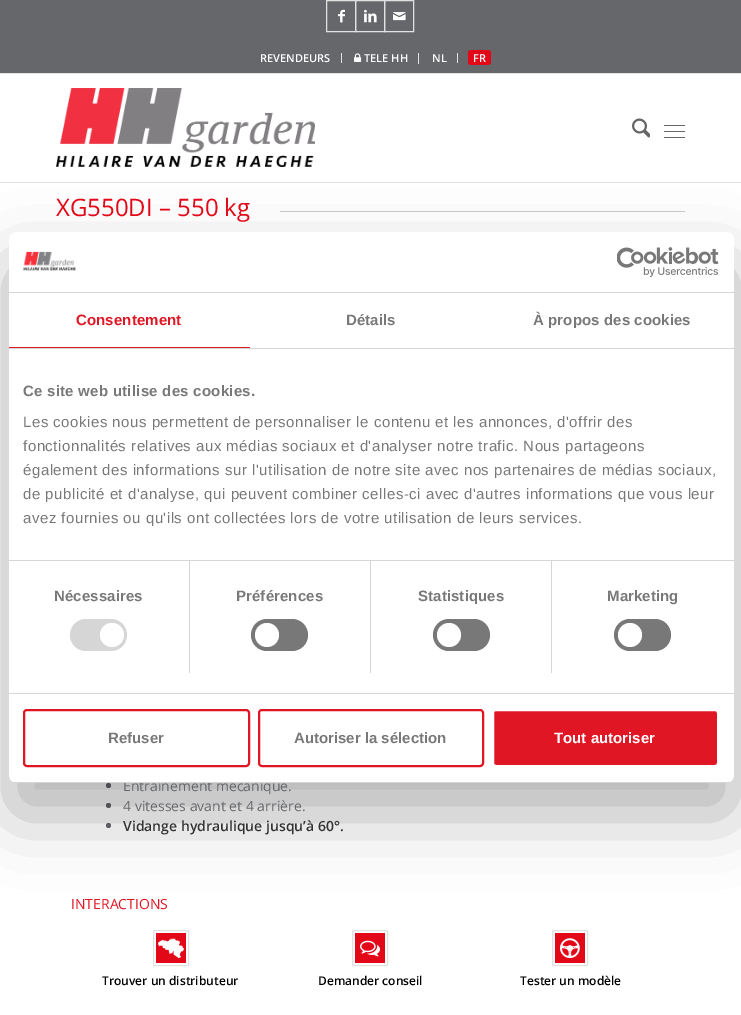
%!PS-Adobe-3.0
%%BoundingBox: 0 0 741 1015
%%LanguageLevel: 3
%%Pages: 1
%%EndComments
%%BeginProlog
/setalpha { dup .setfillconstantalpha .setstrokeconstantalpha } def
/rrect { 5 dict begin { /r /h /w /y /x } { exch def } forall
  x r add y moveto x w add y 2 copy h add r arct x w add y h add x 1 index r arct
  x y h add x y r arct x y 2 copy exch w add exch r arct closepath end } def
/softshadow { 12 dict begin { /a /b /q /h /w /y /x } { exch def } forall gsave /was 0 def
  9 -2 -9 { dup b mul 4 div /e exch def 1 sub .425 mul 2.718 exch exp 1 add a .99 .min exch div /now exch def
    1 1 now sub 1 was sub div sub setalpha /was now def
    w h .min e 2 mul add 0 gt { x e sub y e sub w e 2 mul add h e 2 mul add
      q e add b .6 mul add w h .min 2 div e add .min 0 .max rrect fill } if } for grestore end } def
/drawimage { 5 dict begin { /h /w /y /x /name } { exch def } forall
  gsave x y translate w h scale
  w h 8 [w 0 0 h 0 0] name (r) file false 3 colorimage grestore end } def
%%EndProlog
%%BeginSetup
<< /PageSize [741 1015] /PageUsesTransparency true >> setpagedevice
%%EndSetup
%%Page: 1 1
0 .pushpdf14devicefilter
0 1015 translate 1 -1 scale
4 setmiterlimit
1 setgray
0 0 741 1015 rectfill
0.396 0.404 0.42 setrgbcolor
0 0 741 73 rectfill
0.882 setgray
0 73 741 1 rectfill
326.5 0.5 29 31 rectstroke
(images/1.raw) 338 9 7 14 drawimage
355.5 0.5 29 31 rectstroke
(images/2.raw) 364 9 13 14 drawimage
384.5 0.5 29 31 rectstroke
(images/3.raw) 393 12 13 9 drawimage
341 53 1 10 rectfill
418 53 1 11 rectfill
(images/4.raw) 354 53 8 9 drawimage
457 53 1 10 rectfill
0.89 0.031 0.094 setrgbcolor
468 50 23 15 3 rrect fill
0.882 setgray
0 182 741 1 rectfill
(images/5.raw) 56 88 259 79 drawimage
(images/6.raw) 632 118 18 20 drawimage
0.4 setgray
664 131 21 1 0.5 rrect fill
664 125 21 1 0.5 rrect fill
664 137 21 1 0.5 rrect fill
0.8 setgray
280 211 405 1 rectfill
0.396 0.404 0.42 setrgbcolor
newpath 108.5 785.5 2.5 0 360 arc closepath fill
newpath 108.5 805.5 2.5 0 360 arc closepath fill
newpath 108.5 825.5 2.5 0 360 arc closepath fill
0.89 0.031 0.094 setrgbcolor
156 933 30 30 rectfill
0.882 setgray
153.5 930.5 35 35 rectstroke
(images/7.raw) 158 938 26 20 drawimage
0.89 0.031 0.094 setrgbcolor
355 933 30 30 rectfill
0.882 setgray
352.5 930.5 35 35 rectstroke
(images/8.raw) 360 940 20 17 drawimage
0.89 0.031 0.094 setrgbcolor
555 933 30 30 rectfill
0.882 setgray
552.5 930.5 35 35 rectstroke
(images/9.raw) 560 938 20 20 drawimage
0 setgray
9 264 725 551 8 34 0.3 softshadow
/OpenSans-SemiBold [11 0 0 -11 0 0] selectfont
1 setgray
260 62 moveto (REVENDEURS) show
364 62 moveto (TELE HH) show
432 62 moveto (NL) show
473 62 moveto (FR) show
/OpenSans-Regular [24 0 0 -24 0 0] selectfont
0.89 0.031 0.09 setrgbcolor
56 216 moveto (XG550DI – 550 kg) show
/OpenSans-Regular [14 0 0 -14 0 0] selectfont
0.396 0.404 0.42 setrgbcolor
123 791 moveto (Entraînement mécanique.) show
123 811 moveto (4 vitesses avant et 4 arrière.) show
/OpenSans-SemiBold [14 0 0 -14 0 0] selectfont
0.2 setgray
123 831 moveto (Vidange hydraulique jusqu’à 60°.) show
/OpenSans-Regular [14 0 0 -14 0 0] selectfont
0.882 0.086 0.141 setrgbcolor
71 909 moveto (INTERACTIONS) show
/OpenSans-SemiBold [12 0 0 -12 0 0] selectfont
0 setgray
102 985 moveto (Trouver un distributeur) show
318 985 moveto (Demander conseil) show
520 985 moveto (Tester un modèle) show
1 setgray
9 232 725 551 8 rrect fill
0.839 setgray
9 292 725 1 rectfill
(images/10.raw) 23 251 53 20 drawimage
(images/11.raw) 617 247 102 30 drawimage
9 348 725 1 rectfill
0.882 0.086 0.141 setrgbcolor
9 347 241 1 rectfill
/LiberationSans-Bold [15 0 0 -15 0 0] selectfont
76 325 moveto 0.1 0 (Consentement) ashow
0.471 setgray
346 325 moveto 0.1 0 (Détails) ashow
533 325 moveto 0.1 0 (À propos des cookies) ashow
0.839 setgray
9 560 725 1 rectfill
0.471 setgray
23 396 moveto 0.25 0 (Ce site web utilise des cookies.) ashow
/LiberationSans-Regular [15 0 0 -15 0 0] selectfont
23 427 moveto 0.5 0 (Les cookies nous permettent de personnaliser le contenu et les annonces, d'offrir des) ashow
23 451 moveto 0.5 0 (fonctionnalités relatives aux médias sociaux et d'analyser notre trafic. Nous partageons) ashow
23 475 moveto 0.5 0 (également des informations sur l'utilisation de notre site avec nos partenaires de médias sociaux,) ashow
23 499 moveto 0.5 0 (de publicité et d'analyse, qui peuvent combiner celles-ci avec d'autres informations que vous leur) ashow
23 523 moveto 0.5 0 (avez fournies ou qu'ils ont collectées lors de votre utilisation de leurs services.) ashow
0.839 setgray
9 693 725 1 rectfill
189 561 1 112 rectfill
/LiberationSans-Bold [15 0 0 -15 0 0] selectfont
0.471 setgray
54 601 moveto 0.1 0 (Nécessaires) ashow
0.839 setgray
70 619 57 32 16 rrect fill
1 setgray
newpath 112 635 12 0 360 arc closepath fill
0.839 setgray
370 561 1 112 rectfill
0.471 setgray
236 601 moveto 0.1 0 (Préférences) ashow
251 619 57 32 16 rrect fill
1 setgray
newpath 267 635 12 0 360 arc closepath fill
0.839 setgray
551 561 1 112 rectfill
0.471 setgray
418 601 moveto 0.1 0 (Statistiques) ashow
433 619 57 32 16 rrect fill
1 setgray
newpath 449 635 12 0 360 arc closepath fill
0.471 setgray
607 601 moveto 0.1 0 (Marketing) ashow
614 619 57 32 16 rrect fill
1 setgray
newpath 630 635 12 0 360 arc closepath fill
gsave
9 232 725 551 8 rrect clip newpath
0.839 setgray
9 782 725 1 rectfill
grestore
0.882 0.086 0.141 setrgbcolor
2 setlinewidth
24 710 225 56 3 rrect stroke
0.471 setgray
108 743 moveto (Refuser) show
0.882 0.086 0.141 setrgbcolor
259 710 224 56 3 rrect stroke
0.471 setgray
294 743 moveto (Autoriser la sélection) show
0.882 0.086 0.141 setrgbcolor
493 710 225 56 3 rrect gsave fill grestore
1 setgray
stroke
554 743 moveto (Tout autoriser) show
.poppdf14devicefilter showpage
%%EOF
